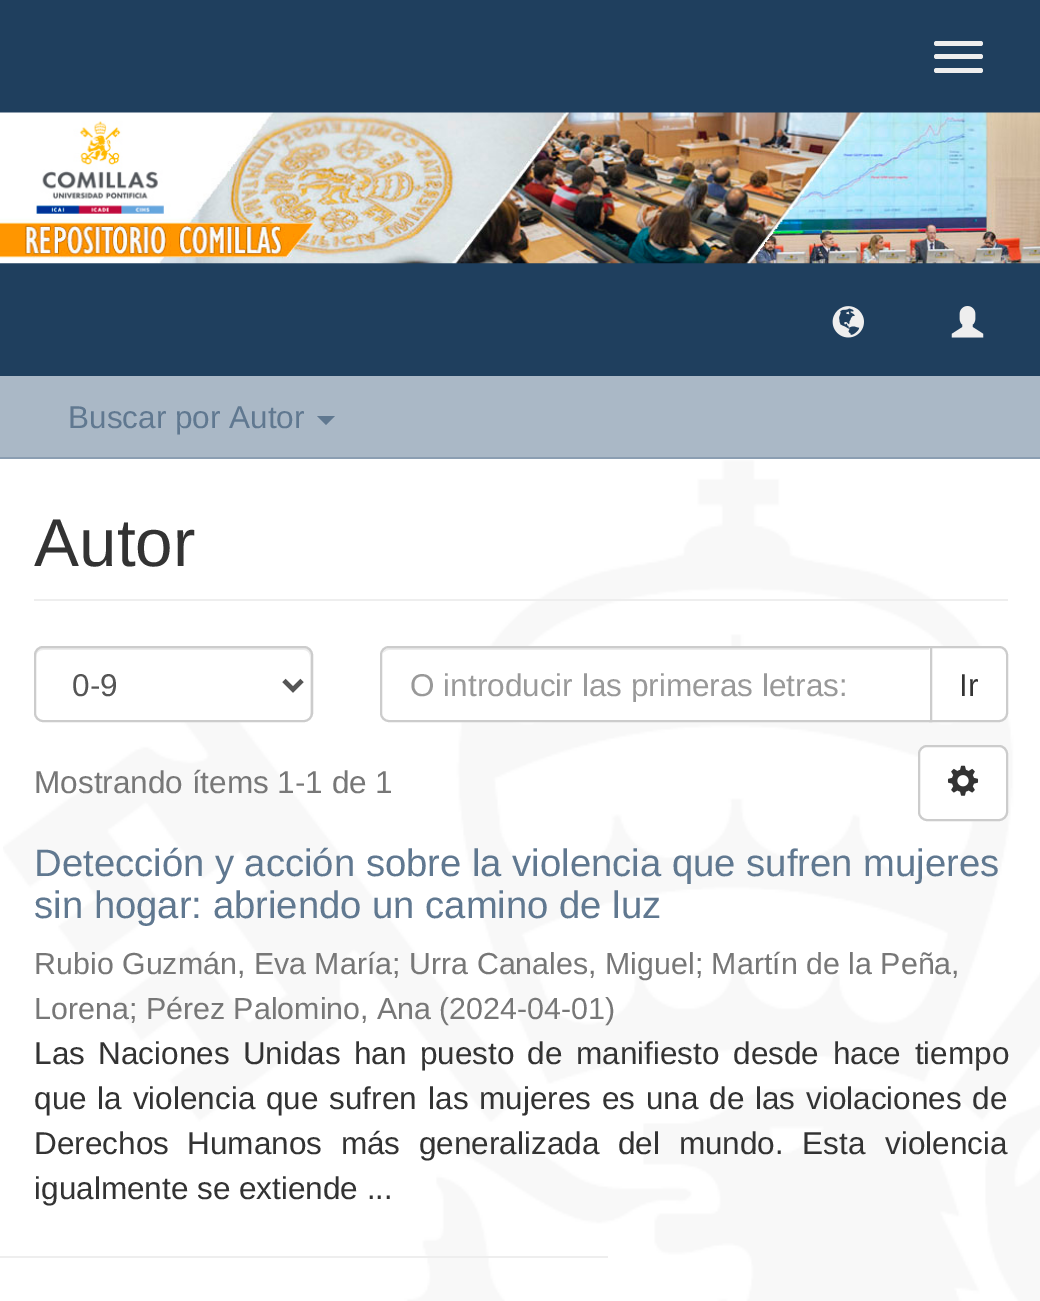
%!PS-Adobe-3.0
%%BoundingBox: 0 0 1040 1301
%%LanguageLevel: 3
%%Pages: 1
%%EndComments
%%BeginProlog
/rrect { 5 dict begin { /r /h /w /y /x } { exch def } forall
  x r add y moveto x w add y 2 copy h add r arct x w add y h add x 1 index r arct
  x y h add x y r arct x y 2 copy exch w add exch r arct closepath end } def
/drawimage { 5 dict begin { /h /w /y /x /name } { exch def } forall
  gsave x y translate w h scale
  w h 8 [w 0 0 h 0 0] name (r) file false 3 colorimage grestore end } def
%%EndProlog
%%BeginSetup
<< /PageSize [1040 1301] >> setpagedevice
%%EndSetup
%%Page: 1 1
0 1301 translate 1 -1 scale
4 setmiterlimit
0.667 0.722 0.776 setrgbcolor
0 0 1040 1301 rectfill
0.122 0.247 0.369 setrgbcolor
0 0 1040 376 rectfill
0.933 setgray
934 41 49 5 2.5 rrect fill
934 54 49 5 2.5 rrect fill
934 68 49 5 2.5 rrect fill
(images/1.raw) 0 112 1040 152 drawimage
(images/2.raw) 832 306 32 32 drawimage
(images/3.raw) 951 306 33 32 drawimage
0.545 0.62 0.698 setrgbcolor
0 457 1040 2 rectfill
0.376 0.471 0.565 setrgbcolor
newpath 317 416 moveto 335 416 lineto 326 425 lineto closepath fill
1 setgray
0 459 1040 842 rectfill
(images/4.raw) 3 460 1037 841 drawimage
0.933 setgray
34 599 974 2 rectfill
1 setgray
34 646 279 76 9 rrect fill
0.925 setgray
newpath 43 650 moveto 304 650 lineto 307 650 310 653 310 657 curveto 310 717 lineto 311 716 311 714 311 713 curveto 311 655 lineto 311 651 308 648 304 648 curveto 43 648 lineto 39 648 36 651 36 655 curveto 36 657 lineto 36 653 39 650 43 650 curveto closepath fill
0.8 setgray
2 setlinewidth
35 647 277 74 8 rrect stroke
0.333 setgray
4.5 setlinewidth
newpath 284 680.5 moveto 293 689.5 lineto 302 680.5 lineto stroke
1 setgray
newpath 930 647 moveto 999 647 lineto 1003.5 647 1007 650.5 1007 655 curveto 1007 713 lineto 1007 717.5 1003.5 721 999 721 curveto 930 721 lineto closepath gsave fill grestore
0.8 setgray
2 setlinewidth
stroke
1 setgray
newpath 389 646 moveto 932 646 lineto 932 722 lineto 389 722 lineto 384 722 380 718 380 713 curveto 380 655 lineto 380 650 384 646 389 646 curveto closepath fill
0.925 setgray
newpath 389 650 moveto 929 650 lineto 929 648 lineto 390 648 lineto 387 648 384 650 383 653 curveto 385 651 387 650 389 650 curveto closepath fill
0.8 setgray
newpath 389 647 moveto 931 647 lineto 931 721 lineto 389 721 lineto 384.5 721 381 717.5 381 713 curveto 381 655 lineto 381 650.5 384.5 647 389 647 curveto closepath stroke
1 setgray
919 746 88 74 8 rrect gsave fill grestore
0.8 setgray
stroke
(images/5.raw) 947 765 32 31 drawimage
0.933 setgray
0 1256 608 2 rectfill
/LiberationSans-Regular [31.5 0 0 -31.5 0 0] selectfont
0.376 0.471 0.565 setrgbcolor
68 428 moveto (Buscar por Autor) show
/LiberationSans-Regular [67.5 0 0 -67.5 0 0] selectfont
0.2 setgray
34 566 moveto (Autor) show
/LiberationSans-Regular [31.5 0 0 -31.5 0 0] selectfont
0.333 setgray
72 696 moveto (0-9) show
gsave
410 666 492 36 rectclip
0.6 setgray
410 696 moveto (O introducir las primeras letras:) show
grestore
0.2 setgray
959 696 moveto (Ir) show
0.467 setgray
34 793 moveto (Mostrando ítems 1-1 de 1) show
/LiberationSans-Regular [38.25 0 0 -38.25 0 0] selectfont
0.376 0.471 0.565 setrgbcolor
34 876 moveto (Detección y acción sobre la violencia que sufren mujeres) show
34 918 moveto (sin hogar: abriendo un camino de luz) show
/LiberationSans-Regular [30.4 0 0 -30.4 0 0] selectfont
0.467 setgray
34 974 moveto (Rubio Guzmán, Eva María; Urra Canales, Miguel; Martín de la Peña,) show
34 1019 moveto (Lorena; Pérez Palomino, Ana) show
439 1019 moveto (\(2024-04-01\)) show
/LiberationSans-Regular [31.5 0 0 -31.5 0 0] selectfont
0.2 setgray
34 1064 moveto 4.5 0 32 (Las Naciones Unidas han puesto de manifiesto) widthshow
733 1064 moveto 5 0 32 (desde hace tiempo) widthshow
34 1109 moveto 2 0 32 (que la violencia que sufren) widthshow
428 1109 moveto 2 0 32 (las mujeres es una de las violaciones de) widthshow
34 1154 moveto (Derechos) show
187 1154 moveto 10 0 32 (Humanos más generalizada del mundo. Esta) widthshow
885 1154 moveto (violencia) show
34 1199 moveto (igualmente se extiende ...) show
showpage
%%EOF
